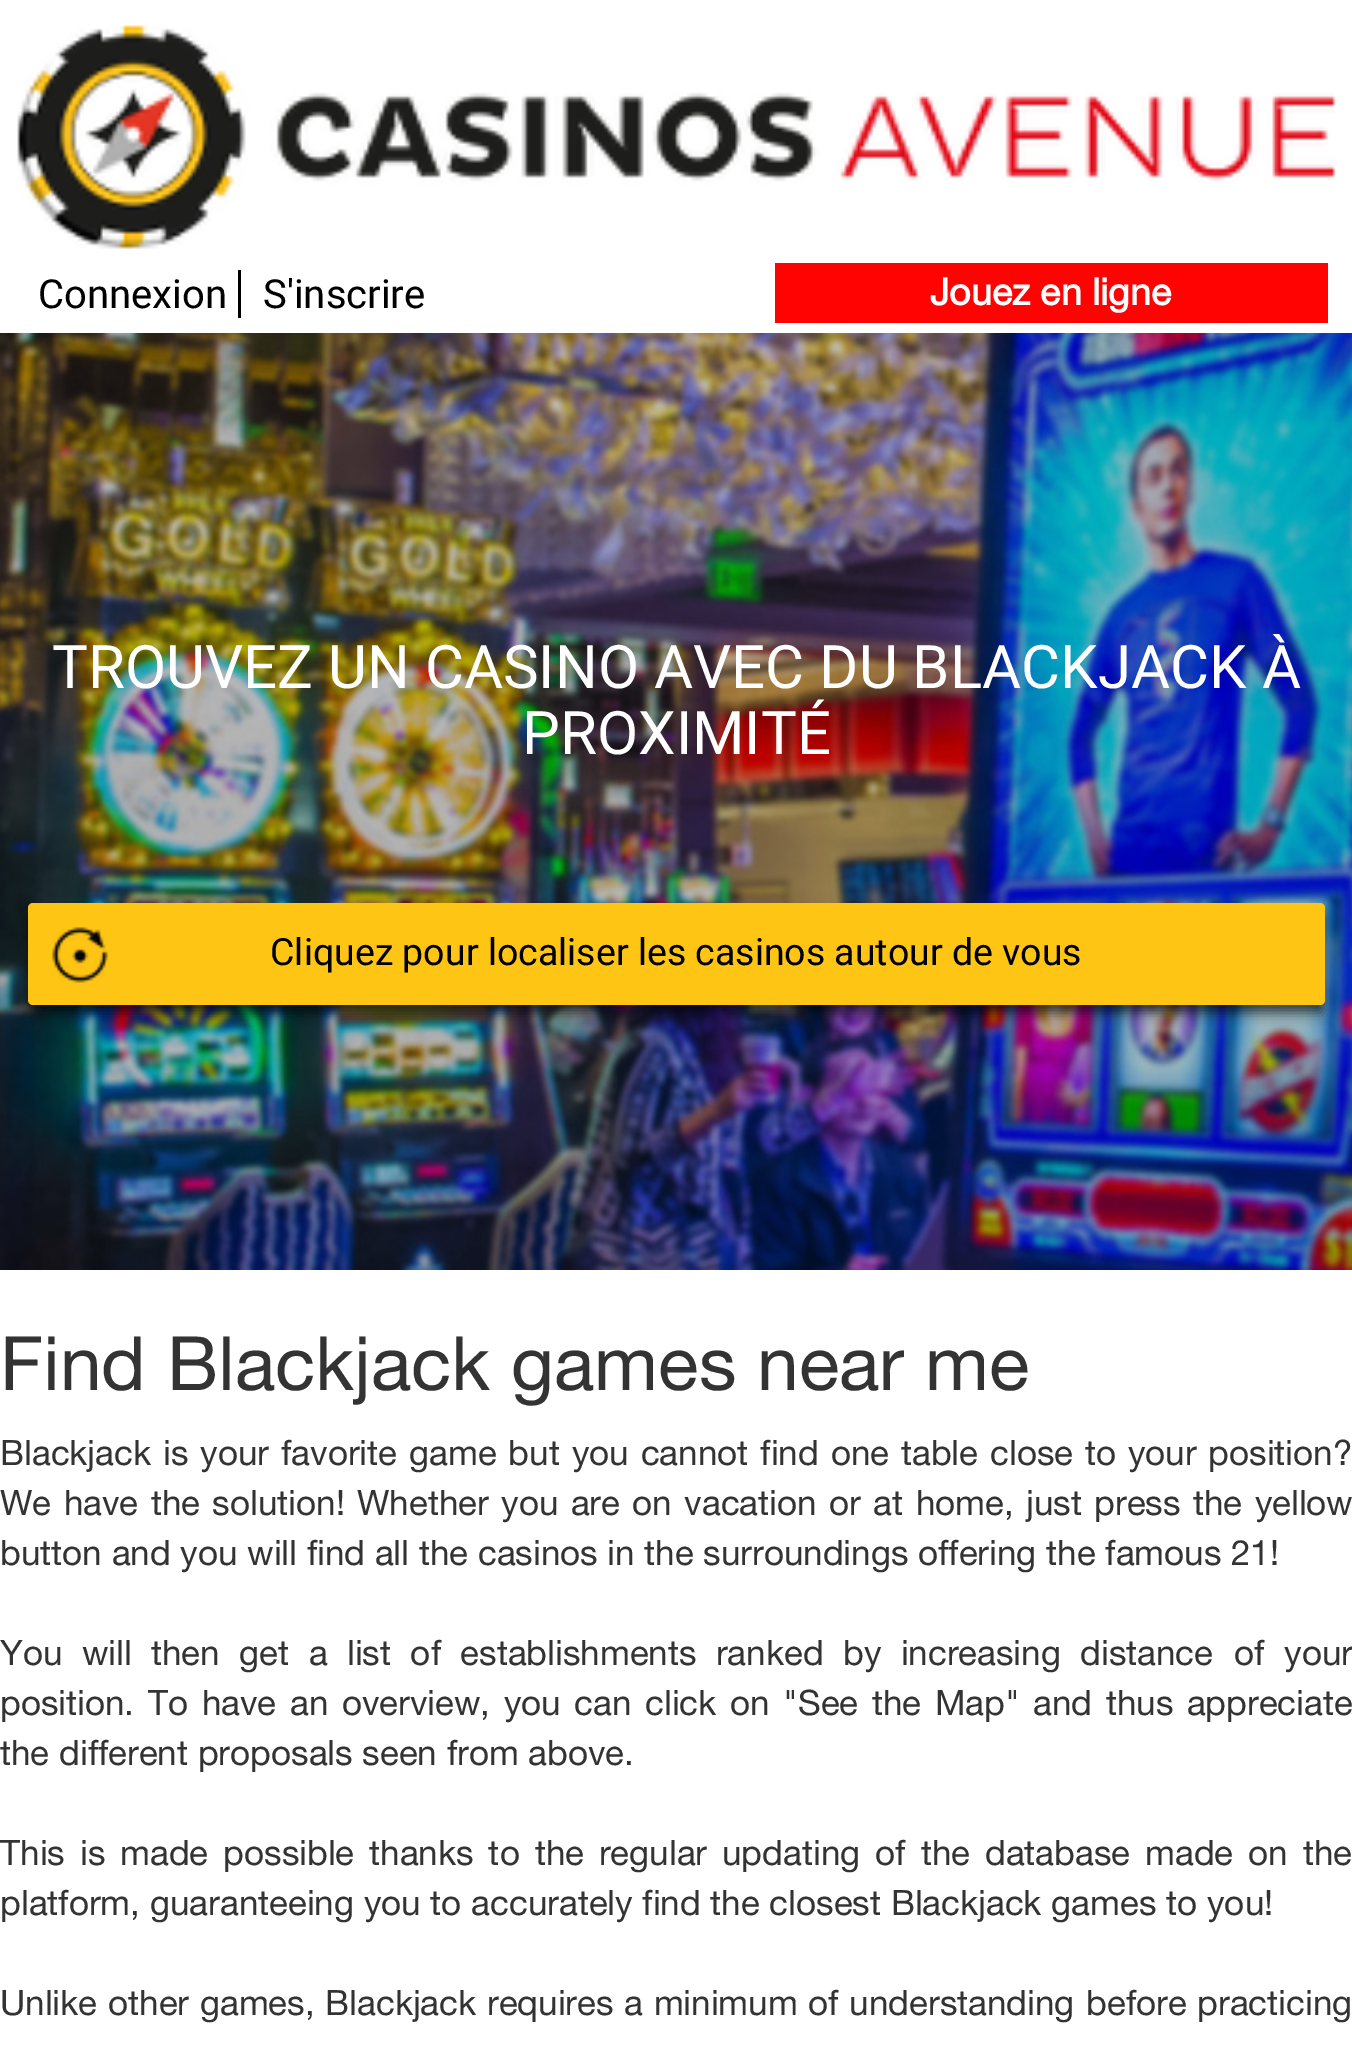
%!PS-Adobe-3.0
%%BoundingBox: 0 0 1352 2049
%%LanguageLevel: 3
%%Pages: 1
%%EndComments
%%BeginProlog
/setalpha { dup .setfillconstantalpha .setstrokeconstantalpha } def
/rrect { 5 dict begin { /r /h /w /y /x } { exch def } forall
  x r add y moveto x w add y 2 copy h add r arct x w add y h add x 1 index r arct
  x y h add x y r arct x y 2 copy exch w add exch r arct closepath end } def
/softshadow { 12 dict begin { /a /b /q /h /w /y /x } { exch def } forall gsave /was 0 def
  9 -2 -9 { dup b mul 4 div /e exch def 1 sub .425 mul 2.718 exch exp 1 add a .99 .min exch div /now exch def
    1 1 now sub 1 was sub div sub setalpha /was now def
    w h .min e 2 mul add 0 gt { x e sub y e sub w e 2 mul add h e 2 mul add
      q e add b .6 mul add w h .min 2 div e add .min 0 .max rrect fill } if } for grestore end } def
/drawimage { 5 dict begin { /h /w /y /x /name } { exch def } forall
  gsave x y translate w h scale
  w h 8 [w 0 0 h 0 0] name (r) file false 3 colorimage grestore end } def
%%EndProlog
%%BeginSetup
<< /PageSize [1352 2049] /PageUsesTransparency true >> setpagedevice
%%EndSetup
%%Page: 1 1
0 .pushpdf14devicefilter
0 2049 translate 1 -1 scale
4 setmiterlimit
1 setgray
0 0 1352 2049 rectfill
(images/1.raw) 17 25 1319 224 drawimage
0 setgray
238 270 3 48 rectfill
1 0.008 0.008 setrgbcolor
775 263 553 60 rectfill
(images/2.raw) 0 333 1352 937 drawimage
0 setgray
30 915 1293 98 2.5 6 0.65 softshadow
1 0.773 0.078 setrgbcolor
28 903 1297 102 5 rrect fill
(images/3.raw) 52 927 56 56 drawimage
/Roboto-Regular [40 0 0 -40 0 0] selectfont
0 setgray
38 308 moveto (Connexion) show
263 308 moveto (S'inscrire) show
/HelveticaNeue-Bold [37.5 0 0 -37.5 0 0] selectfont
1 setgray
930 305 moveto (Jouez en ligne) show
/Roboto-Regular [60 0 0 -60 0 0] selectfont
52 688 moveto (TROUVEZ UN CASINO AVEC DU BLACKJACK À) show
522 754 moveto (PROXIMITÉ) show
/Roboto-Regular [37.5 0 0 -37.5 0 0] selectfont
0 setgray
270 965 moveto (Cliquez pour localiser les casinos autour de vous) show
/HelveticaNeue-Regular [75 0 0 -75 0 0] selectfont
0.2 setgray
0 1390 moveto (Find Blackjack games near me) show
/HelveticaNeue-Regular [35 0 0 -35 0 0] selectfont
0 1465 moveto 2.25 0 32 (Blackjack is your favorite game but you cannot find one table close) widthshow
1085 1465 moveto 2 0 32 (to your position?) widthshow
0 1515 moveto 2.75 0 32 (We have the solution!) widthshow
357 1515 moveto 2.75 0 32 (Whether you are on vacation or at home, just press the yellow) widthshow
0 1565 moveto (button and you will find all the casinos in the surroundings offering the famous 21!) show
0 1665 moveto 9.75 0 32 (You will then get a list of establishments ranked by increasing distance) widthshow
1234 1665 moveto 10 0 32 (of your) widthshow
0 1715 moveto 3.9 0 32 (position. To have an overview, you can click on "See the Map") widthshow
1033 1715 moveto 3.9 0 32 (and thus appreciate) widthshow
0 1765 moveto (the different proposals seen from above.) show
0 1865 moveto 5.25 0 32 (This is made possible thanks to the regular updating of the database) widthshow
1145 1865 moveto 5.25 0 32 (made on the) widthshow
0 1915 moveto (platform, guaranteeing you to accurately find the closest Blackjack games to you!) show
0 2015 moveto 1 0 32 (Unlike other games, Blackjack requires a minimum of understanding) widthshow
1086 2015 moveto 1 0 32 (before practicing) widthshow
.poppdf14devicefilter showpage
%%EOF
